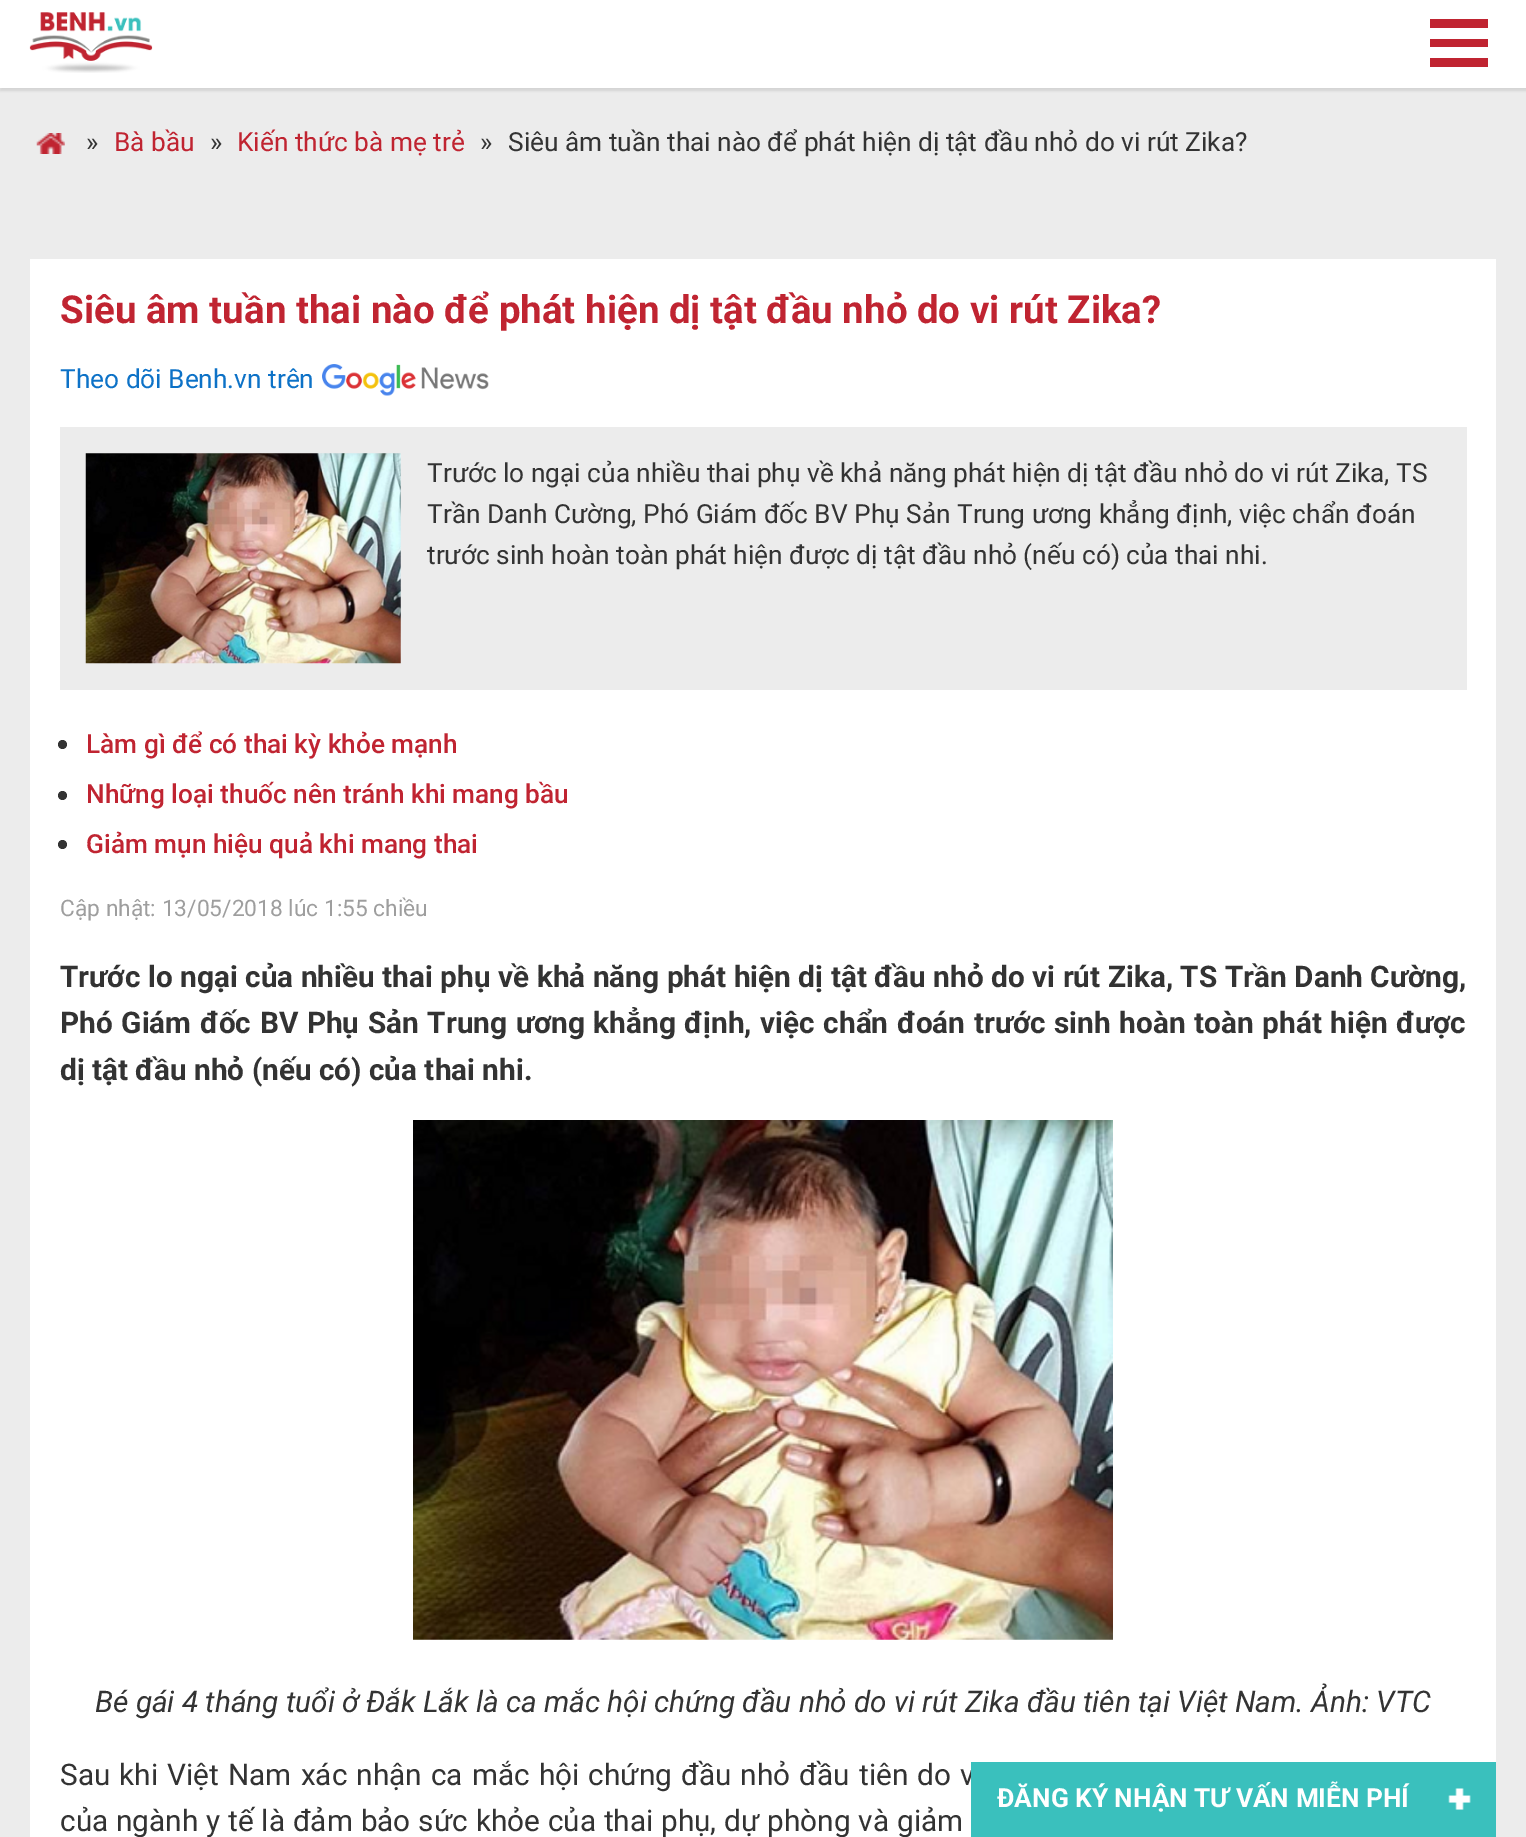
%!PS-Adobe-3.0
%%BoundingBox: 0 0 1526 1837
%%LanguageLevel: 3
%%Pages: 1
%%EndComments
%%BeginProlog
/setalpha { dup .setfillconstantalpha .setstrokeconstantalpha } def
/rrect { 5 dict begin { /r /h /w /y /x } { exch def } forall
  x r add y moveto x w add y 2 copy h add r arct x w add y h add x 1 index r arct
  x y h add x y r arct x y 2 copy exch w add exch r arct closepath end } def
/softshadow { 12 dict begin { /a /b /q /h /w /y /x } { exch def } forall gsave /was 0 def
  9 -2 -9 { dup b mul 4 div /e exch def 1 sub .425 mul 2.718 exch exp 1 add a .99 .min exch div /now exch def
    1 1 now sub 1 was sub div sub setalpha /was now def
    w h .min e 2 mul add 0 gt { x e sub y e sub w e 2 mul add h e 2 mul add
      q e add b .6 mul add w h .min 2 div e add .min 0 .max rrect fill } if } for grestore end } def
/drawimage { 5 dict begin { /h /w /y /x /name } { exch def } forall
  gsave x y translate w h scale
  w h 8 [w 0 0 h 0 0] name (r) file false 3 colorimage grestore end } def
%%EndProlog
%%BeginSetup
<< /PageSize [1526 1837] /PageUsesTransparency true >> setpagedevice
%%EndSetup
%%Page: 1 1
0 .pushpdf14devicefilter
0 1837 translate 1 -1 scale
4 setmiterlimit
0.925 setgray
0 0 1526 1837 rectfill
0 setgray
0 0 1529 91 0 1 0.1 softshadow
1 setgray
0 0 1526 88 rectfill
0.753 0.141 0.192 setrgbcolor
1430 19 58 9 rectfill
1430 39 58 8 rectfill
1430 58 58 9 rectfill
(images/1.raw) 29 12 124 61 drawimage
(images/2.raw) 36 133 29 21 drawimage
1 setgray
30 259 1466 1578 rectfill
(images/3.raw) 322 364 167 32 drawimage
0.925 setgray
60 427 1407 263 rectfill
(images/4.raw) 85 453 316 211 drawimage
0.2 setgray
newpath 62.5 744.5 4.5 0 360 arc closepath fill
newpath 62.5 795.5 4.5 0 360 arc closepath fill
newpath 62.5 844.5 4.5 0 360 arc closepath fill
(images/5.raw) 413 1120 700 520 drawimage
/Roboto-Regular [26.25 0 0 -26.25 0 0] selectfont
86 151 moveto (») show
0.753 0.141 0.192 setrgbcolor
114 151 moveto (Bà bầu) show
0.2 setgray
210 151 moveto (») show
0.753 0.141 0.192 setrgbcolor
237 151 moveto (Kiến thức bà mẹ trẻ) show
0.2 setgray
480 151 moveto (») show
508 151 moveto (Siêu âm tuần thai nào để phát hiện dị tật đầu nhỏ do vi rút Zika?) show
/Roboto-Bold [38.5 0 0 -38.5 0 0] selectfont
0.753 0.141 0.192 setrgbcolor
60 323 moveto (Siêu âm tuần thai nào để phát hiện dị tật đầu nhỏ do vi rút Zika?) show
/Roboto-Regular [26.25 0 0 -26.25 0 0] selectfont
0.051 0.447 0.78 setrgbcolor
60 388 moveto (Theo dõi Benh.vn trên) show
0.2 setgray
427 482 moveto (Trước lo ngại của nhiều thai phụ về khả năng phát hiện dị tật đầu nhỏ do vi rút Zika, TS) show
427 523 moveto (Trần Danh Cường, Phó Giám đốc BV Phụ Sản Trung ương khẳng định, việc chẩn đoán) show
427 564 moveto (trước sinh hoàn toàn phát hiện được dị tật đầu nhỏ \(nếu có\) của thai nhi.) show
/Roboto-Medium [26.25 0 0 -26.25 0 0] selectfont
0.753 0.141 0.192 setrgbcolor
86 753 moveto (Làm gì để có thai kỳ khỏe mạnh) show
86 803 moveto (Những loại thuốc nên tránh khi mang bầu) show
86 853 moveto (Giảm mụn hiệu quả khi mang thai) show
/Roboto-Regular [22.75 0 0 -22.75 0 0] selectfont
0.62 setgray
60 916 moveto (Cập nhật: 13/05/2018 lúc 1:55 chiều) show
/Roboto-Bold [29.75 0 0 -29.75 0 0] selectfont
0.2 setgray
60 987 moveto 0.2 0 32 (Trước lo ngại của nhiều thai phụ về khả năng phát hiện dị tật đầu nhỏ do vi rút Zika, TS Trần Danh Cường,) widthshow
60 1033 moveto 1.3 0 32 (Phó Giám đốc BV Phụ Sản Trung ương khẳng định, việc chẩn đoán trước sinh hoàn toàn phát hiện được) widthshow
60 1080 moveto (dị tật đầu nhỏ \(nếu có\) của thai nhi.) show
/Roboto-Italic [29.75 0 0 -29.75 0 0] selectfont
95 1712 moveto (Bé gái 4 tháng tuổi ở Đắk Lắk là ca mắc hội chứng đầu nhỏ do vi rút Zika đầu tiên tại Việt Nam. Ảnh: VTC) show
/Roboto-Regular [29.75 0 0 -29.75 0 0] selectfont
60 1785 moveto 1.75 0 32 (Sau khi Việt Nam xác nhận ca mắc hội chứng đầu nhỏ đầu tiên do v) widthshow
60 1831 moveto 0.5 0 32 (của ngành y tế là đảm bảo sức khỏe của thai phụ, dự phòng và giảm) widthshow
0.227 0.753 0.741 setrgbcolor
971 1762 525 75 rectfill
(images/6.raw) 1448 1788 23 22 drawimage
/Roboto-Bold [26.25 0 0 -26.25 0 0] selectfont
1 setgray
997 1807 moveto (ĐĂNG KÝ NHẬN TƯ VẤN MIỄN PHÍ) show
.poppdf14devicefilter showpage
%%EOF
